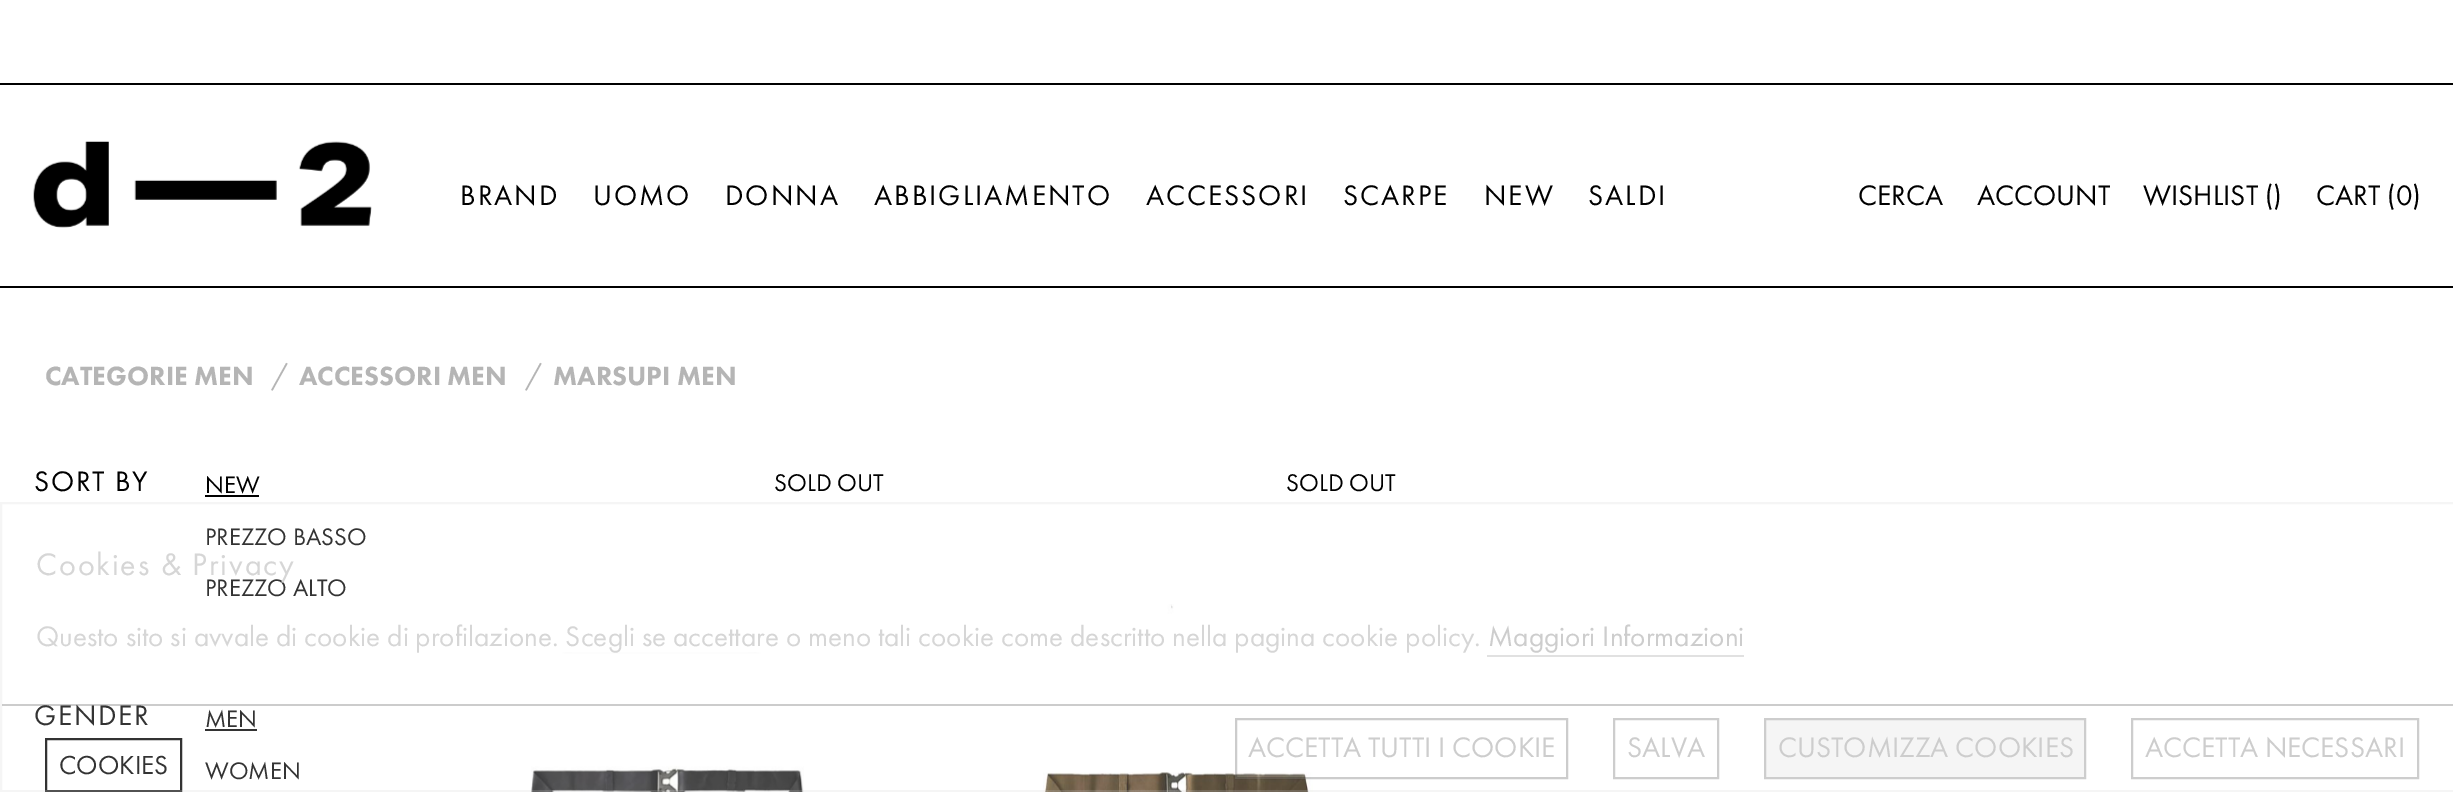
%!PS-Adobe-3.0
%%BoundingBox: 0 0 2453 792
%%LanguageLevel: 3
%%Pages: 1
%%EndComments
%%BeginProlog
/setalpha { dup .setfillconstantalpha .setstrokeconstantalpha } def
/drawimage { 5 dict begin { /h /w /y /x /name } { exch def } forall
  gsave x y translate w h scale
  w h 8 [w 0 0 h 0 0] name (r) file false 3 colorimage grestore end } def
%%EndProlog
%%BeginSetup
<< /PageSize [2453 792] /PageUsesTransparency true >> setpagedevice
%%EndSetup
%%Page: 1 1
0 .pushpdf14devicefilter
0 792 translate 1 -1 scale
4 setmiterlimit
1 setgray
0 0 2453 792 rectfill
0 setgray
0 286 2453 2 rectfill
0 83 2453 2 rectfill
(images/1.raw) 33 141 339 87 drawimage
205 495 54 2 rectfill
0.2 setgray
205 729 52 2 rectfill
(images/2.raw) 531 652 273 140 drawimage
(images/3.raw) 1043 604 270 188 drawimage
2 setlinewidth
46 739 135 52 rectstroke
0.2 setalpha
0.8 setgray
1 503 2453 288 rectstroke
1 setalpha
0.882 setgray
1487 655 257 2 rectfill
0.2 setalpha
1 setgray
1235 773 71 6 rectfill
0 setgray
1236 719 331 59 rectstroke
1 setalpha
0.804 setgray
1614 719 104 59 rectstroke
0.961 setgray
newpath 1765 719 moveto 2085 719 lineto 2085 778 lineto 1765 778 lineto closepath gsave fill grestore
0.804 setgray
stroke
2132 719 286 59 rectstroke
/FuturaPT-Regular [29.25 0 0 -29.25 0 0] selectfont
0 setgray
460 205 moveto 2 0 (BRAND) ashow
593 205 moveto 2 0 (UOMO) ashow
725 205 moveto 2 0 (DONNA) ashow
874 205 moveto 2 0 (ABBIGLIAMENTO) ashow
1146 205 moveto 2 0 (ACCESSORI) ashow
1343 205 moveto 2 0 (SCARPE) ashow
1484 205 moveto 2 0 (NEW) ashow
1588 205 moveto 2 0 (SALDI) ashow
1858 205 moveto (CERCA) show
1977 205 moveto (ACCOUNT) show
2143 205 moveto (WISHLIST \(\)) show
2316 205 moveto (CART \(0\)) show
/FuturaPT-Black [27.25 0 0 -27.25 0 0] selectfont
0.71 setgray
45 385 moveto (CATEGORIE MEN) show
/FuturaPT-Regular [29.25 0 0 -29.25 0 0] selectfont
271 385 moveto (/) show
/FuturaPT-Black [27.25 0 0 -27.25 0 0] selectfont
299 385 moveto (ACCESSORI MEN) show
/FuturaPT-Regular [29.25 0 0 -29.25 0 0] selectfont
525 385 moveto (/) show
/FuturaPT-Black [27.25 0 0 -27.25 0 0] selectfont
553 385 moveto (MARSUPI MEN) show
/FuturaPT-Regular [29.25 0 0 -29.25 0 0] selectfont
0 setgray
34 491 moveto 1.75 0 (SORT BY) ashow
/FuturaPT-Regular [24.75 0 0 -24.75 0 0] selectfont
205 493 moveto (NEW) show
0.2 setgray
205 545 moveto (PREZZO BASSO) show
205 596 moveto (PREZZO ALTO) show
/FuturaPT-Regular [29.25 0 0 -29.25 0 0] selectfont
34 725 moveto 1.75 0 (GENDER) ashow
/FuturaPT-Regular [24.75 0 0 -24.75 0 0] selectfont
205 727 moveto (MEN) show
205 779 moveto (WOMEN) show
/FuturaPT-Regular [25 0 0 -25 0 0] selectfont
0 setgray
774 491 moveto (SOLD OUT) show
1286 491 moveto (SOLD OUT) show
/FuturaPT-Regular [32.25 0 0 -32.25 0 0] selectfont
0.839 setgray
36 575 moveto 1.9 0 (Cookies & Privacy) ashow
/FuturaPT-Regular [29.25 0 0 -29.25 0 0] selectfont
36 646 moveto (Questo sito si avvale di cookie di profilazione. Scegli se accettare o meno tali cookie come descritto nella pagina cookie policy.) show
0.804 setgray
1488 646 moveto (Maggiori Informazioni) show
0.2 setalpha
0 setgray
2 704 2451 2 rectfill
1 setalpha
0.804 setgray
1248 757 moveto (ACCETTA TUTTI I COOKIE) show
1627 757 moveto (SALVA) show
1778 757 moveto (CUSTOMIZZA COOKIES) show
2145 757 moveto (ACCETTA NECESSARI) show
/FuturaPT-Regular [27 0 0 -27 0 0] selectfont
0.2 setgray
59 774 moveto (COOKIES) show
.poppdf14devicefilter showpage
%%EOF
